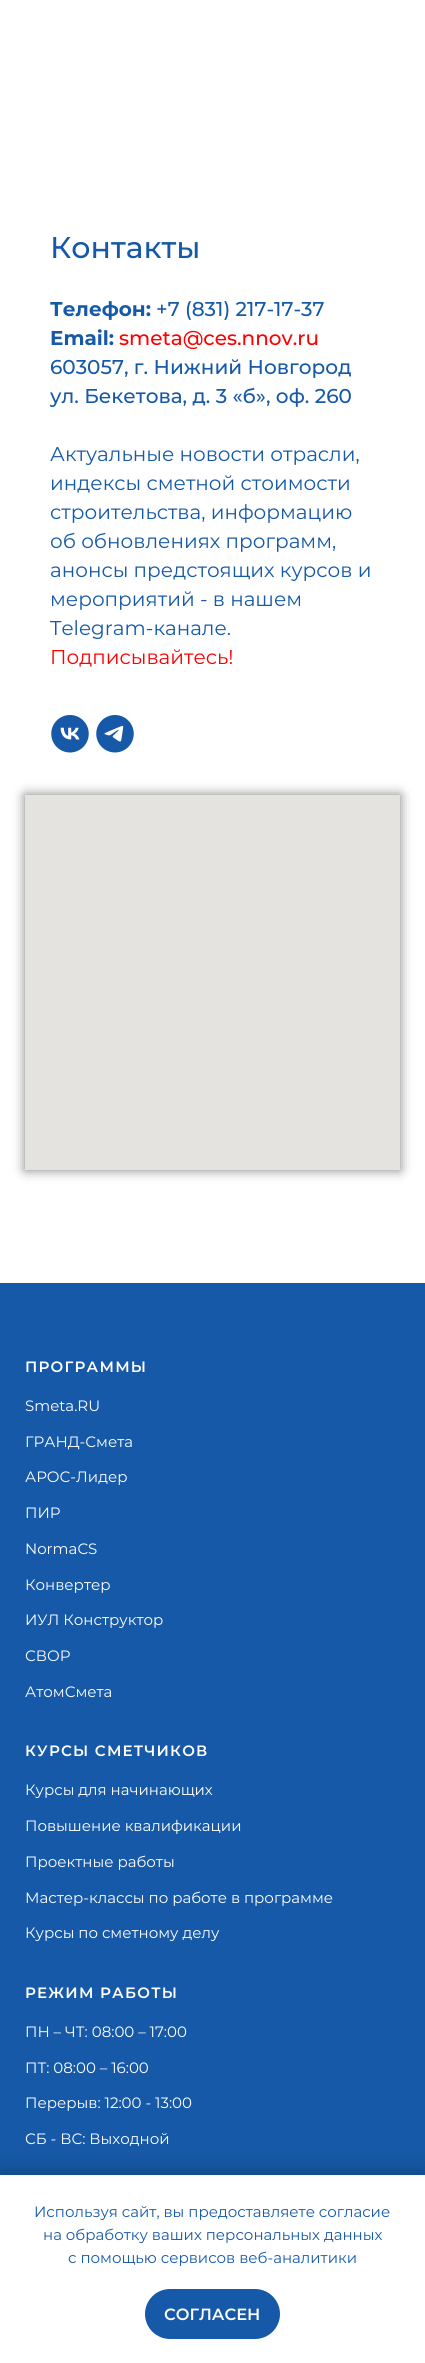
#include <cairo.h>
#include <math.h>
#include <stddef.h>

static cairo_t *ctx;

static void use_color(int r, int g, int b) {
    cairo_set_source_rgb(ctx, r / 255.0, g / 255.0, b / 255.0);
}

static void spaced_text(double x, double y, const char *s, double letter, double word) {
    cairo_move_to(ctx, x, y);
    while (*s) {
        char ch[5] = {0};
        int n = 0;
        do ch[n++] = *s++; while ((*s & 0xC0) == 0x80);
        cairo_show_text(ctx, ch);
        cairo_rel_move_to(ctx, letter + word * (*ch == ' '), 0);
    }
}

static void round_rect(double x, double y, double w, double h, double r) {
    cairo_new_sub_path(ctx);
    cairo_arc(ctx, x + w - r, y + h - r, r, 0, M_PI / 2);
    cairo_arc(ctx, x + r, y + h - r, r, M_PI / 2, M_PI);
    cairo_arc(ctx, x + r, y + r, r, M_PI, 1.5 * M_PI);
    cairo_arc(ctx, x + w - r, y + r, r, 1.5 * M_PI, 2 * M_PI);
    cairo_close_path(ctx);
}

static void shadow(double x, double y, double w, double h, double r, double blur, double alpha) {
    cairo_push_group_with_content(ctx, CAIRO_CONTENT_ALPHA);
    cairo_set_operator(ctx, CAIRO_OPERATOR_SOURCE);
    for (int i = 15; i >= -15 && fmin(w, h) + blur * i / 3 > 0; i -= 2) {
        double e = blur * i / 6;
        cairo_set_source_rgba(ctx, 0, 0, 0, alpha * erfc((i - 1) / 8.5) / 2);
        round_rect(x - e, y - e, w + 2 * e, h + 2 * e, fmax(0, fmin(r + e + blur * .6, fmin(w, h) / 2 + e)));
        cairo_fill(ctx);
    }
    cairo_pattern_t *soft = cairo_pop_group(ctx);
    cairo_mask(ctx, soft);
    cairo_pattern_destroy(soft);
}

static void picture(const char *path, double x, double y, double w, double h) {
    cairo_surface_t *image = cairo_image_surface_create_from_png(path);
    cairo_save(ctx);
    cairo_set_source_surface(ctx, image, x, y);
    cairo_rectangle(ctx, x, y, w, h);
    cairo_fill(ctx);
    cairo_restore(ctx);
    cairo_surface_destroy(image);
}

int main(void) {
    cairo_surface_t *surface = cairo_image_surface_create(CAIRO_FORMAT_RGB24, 425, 2363);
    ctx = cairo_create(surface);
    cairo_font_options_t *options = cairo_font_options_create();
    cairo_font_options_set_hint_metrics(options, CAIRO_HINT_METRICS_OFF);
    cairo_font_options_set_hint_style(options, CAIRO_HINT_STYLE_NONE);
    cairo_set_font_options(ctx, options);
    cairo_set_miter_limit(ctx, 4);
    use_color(255, 255, 255);
    cairo_paint(ctx);
    cairo_select_font_face(ctx, "Montserrat Medium", CAIRO_FONT_SLANT_NORMAL, CAIRO_FONT_WEIGHT_NORMAL);
    cairo_set_font_size(ctx, 30);
    use_color(22, 89, 168);
    cairo_move_to(ctx, 50, 258);
    cairo_show_text(ctx, "Контакты");
    cairo_select_font_face(ctx, "Montserrat", CAIRO_FONT_SLANT_NORMAL, CAIRO_FONT_WEIGHT_BOLD);
    cairo_set_font_size(ctx, 20);
    cairo_move_to(ctx, 50, 316);
    cairo_show_text(ctx, "Телефон:");
    cairo_select_font_face(ctx, "Montserrat Medium", CAIRO_FONT_SLANT_NORMAL, CAIRO_FONT_WEIGHT_NORMAL);
    cairo_move_to(ctx, 156, 316);
    cairo_show_text(ctx, "+7 (831) 217-17-37");
    cairo_select_font_face(ctx, "Montserrat", CAIRO_FONT_SLANT_NORMAL, CAIRO_FONT_WEIGHT_BOLD);
    cairo_move_to(ctx, 50, 345);
    cairo_show_text(ctx, "Email:");
    cairo_select_font_face(ctx, "Montserrat Medium", CAIRO_FONT_SLANT_NORMAL, CAIRO_FONT_WEIGHT_NORMAL);
    use_color(255, 0, 0);
    cairo_move_to(ctx, 119, 345);
    cairo_show_text(ctx, "smeta@ces.nnov.ru");
    use_color(22, 89, 168);
    cairo_move_to(ctx, 50, 374);
    cairo_show_text(ctx, "603057, г. Нижний Новгород");
    cairo_move_to(ctx, 50, 403);
    cairo_show_text(ctx, "ул. Бекетова, д. 3 «б», оф. 260");
    cairo_select_font_face(ctx, "Montserrat", CAIRO_FONT_SLANT_NORMAL, CAIRO_FONT_WEIGHT_NORMAL);
    cairo_move_to(ctx, 50, 461);
    cairo_show_text(ctx, "Актуальные новости отрасли,");
    cairo_move_to(ctx, 50, 490);
    cairo_show_text(ctx, "индексы сметной стоимости");
    cairo_move_to(ctx, 50, 519);
    cairo_show_text(ctx, "строительства, информацию");
    cairo_move_to(ctx, 50, 548);
    cairo_show_text(ctx, "об обновлениях программ,");
    cairo_move_to(ctx, 50, 577);
    cairo_show_text(ctx, "анонсы предстоящих курсов и");
    cairo_move_to(ctx, 50, 606);
    cairo_show_text(ctx, "мероприятий - в нашем");
    cairo_move_to(ctx, 50, 635);
    cairo_show_text(ctx, "Telegram-канале.");
    use_color(255, 0, 0);
    cairo_move_to(ctx, 50, 664);
    cairo_show_text(ctx, "Подписывайтесь!");
    picture("img1.png", 51, 715, 38, 38);
    picture("img2.png", 96, 715, 38, 38);
    use_color(0, 0, 0);
    shadow(25, 795, 375, 375, 0, 6, 0.5);
    use_color(229, 227, 223);
    cairo_rectangle(ctx, 25, 795, 375, 375);
    cairo_fill(ctx);
    use_color(22, 89, 168);
    cairo_rectangle(ctx, 0, 1283, 425, 892);
    cairo_fill(ctx);
    cairo_select_font_face(ctx, "Montserrat SemiBold", CAIRO_FONT_SLANT_NORMAL, CAIRO_FONT_WEIGHT_NORMAL);
    cairo_set_font_size(ctx, 15);
    use_color(255, 255, 255);
    spaced_text(25, 1372, "ПРОГРАММЫ", 1.25, 0);
    cairo_select_font_face(ctx, "Montserrat", CAIRO_FONT_SLANT_NORMAL, CAIRO_FONT_WEIGHT_NORMAL);
    cairo_move_to(ctx, 25, 1411);
    cairo_show_text(ctx, "Smeta.RU");
    cairo_move_to(ctx, 25, 1447);
    cairo_show_text(ctx, "ГРАНД-Смета");
    cairo_move_to(ctx, 25, 1482);
    cairo_show_text(ctx, "АРОС-Лидер");
    cairo_move_to(ctx, 25, 1518);
    cairo_show_text(ctx, "ПИР");
    cairo_move_to(ctx, 25, 1554);
    cairo_show_text(ctx, "NormaCS");
    cairo_move_to(ctx, 25, 1590);
    cairo_show_text(ctx, "Конвертер");
    cairo_move_to(ctx, 25, 1625);
    cairo_show_text(ctx, "ИУЛ Конструктор");
    cairo_move_to(ctx, 25, 1661);
    cairo_show_text(ctx, "СВОР");
    cairo_move_to(ctx, 25, 1697);
    cairo_show_text(ctx, "АтомСмета");
    cairo_select_font_face(ctx, "Montserrat SemiBold", CAIRO_FONT_SLANT_NORMAL, CAIRO_FONT_WEIGHT_NORMAL);
    spaced_text(25, 1756, "КУРСЫ СМЕТЧИКОВ", 1.25, 0);
    cairo_select_font_face(ctx, "Montserrat", CAIRO_FONT_SLANT_NORMAL, CAIRO_FONT_WEIGHT_NORMAL);
    cairo_move_to(ctx, 25, 1795);
    cairo_show_text(ctx, "Курсы для начинающих");
    cairo_move_to(ctx, 25, 1831);
    cairo_show_text(ctx, "Повышение квалификации");
    cairo_move_to(ctx, 25, 1867);
    cairo_show_text(ctx, "Проектные работы");
    cairo_move_to(ctx, 25, 1903);
    cairo_show_text(ctx, "Мастер-классы по работе в программе");
    cairo_move_to(ctx, 25, 1938);
    cairo_show_text(ctx, "Курсы по сметному делу");
    cairo_select_font_face(ctx, "Montserrat SemiBold", CAIRO_FONT_SLANT_NORMAL, CAIRO_FONT_WEIGHT_NORMAL);
    spaced_text(25, 1998, "РЕЖИМ РАБОТЫ", 1.25, 0);
    cairo_select_font_face(ctx, "Montserrat", CAIRO_FONT_SLANT_NORMAL, CAIRO_FONT_WEIGHT_NORMAL);
    cairo_move_to(ctx, 25, 2037);
    cairo_show_text(ctx, "ПН – ЧТ: 08:00 – 17:00");
    cairo_move_to(ctx, 25, 2073);
    cairo_show_text(ctx, "ПТ: 08:00 – 16:00");
    cairo_move_to(ctx, 25, 2108);
    cairo_show_text(ctx, "Перерыв: 12:00 - 13:00");
    cairo_move_to(ctx, 25, 2144);
    cairo_show_text(ctx, "СБ - ВС: Выходной");
    use_color(0, 0, 0);
    shadow(0, 2175, 425, 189, 0, 12.5, 0.3);
    use_color(255, 255, 255);
    cairo_rectangle(ctx, 0, 2175, 425, 188);
    cairo_fill(ctx);
    use_color(22, 89, 168);
    cairo_move_to(ctx, 34, 2217);
    cairo_show_text(ctx, "Используя сайт, вы предоставляете согласие");
    cairo_move_to(ctx, 43, 2240);
    cairo_show_text(ctx, "на обработку ваших персональных данных");
    cairo_move_to(ctx, 68, 2263);
    cairo_show_text(ctx, "с помощью сервисов веб-аналитики");
    round_rect(145, 2289, 135, 50, 25);
    cairo_fill(ctx);
    cairo_select_font_face(ctx, "Montserrat SemiBold", CAIRO_FONT_SLANT_NORMAL, CAIRO_FONT_WEIGHT_NORMAL);
    cairo_set_font_size(ctx, 16.25);
    use_color(255, 255, 255);
    cairo_move_to(ctx, 164, 2320);
    cairo_show_text(ctx, "СОГЛАСЕН");
    cairo_surface_write_to_png(surface, "result.png");
    cairo_font_options_destroy(options);
    cairo_destroy(ctx);
    cairo_surface_destroy(surface);
    return 0;
}
